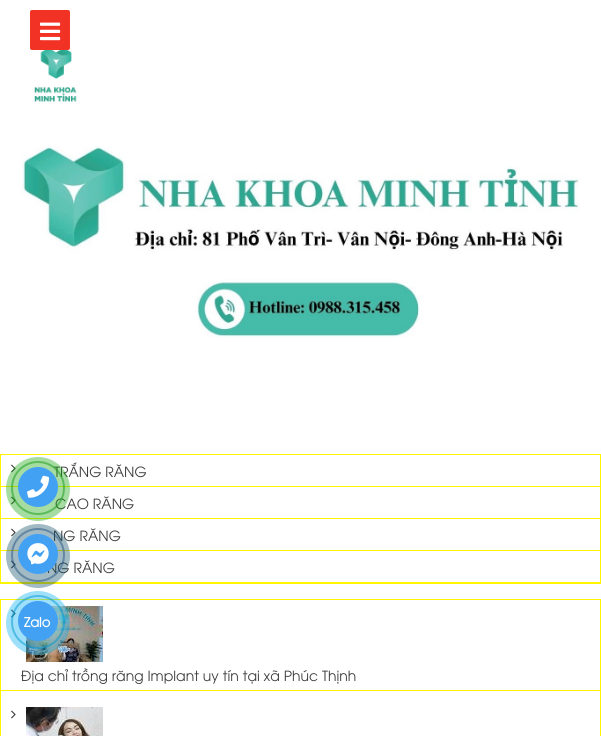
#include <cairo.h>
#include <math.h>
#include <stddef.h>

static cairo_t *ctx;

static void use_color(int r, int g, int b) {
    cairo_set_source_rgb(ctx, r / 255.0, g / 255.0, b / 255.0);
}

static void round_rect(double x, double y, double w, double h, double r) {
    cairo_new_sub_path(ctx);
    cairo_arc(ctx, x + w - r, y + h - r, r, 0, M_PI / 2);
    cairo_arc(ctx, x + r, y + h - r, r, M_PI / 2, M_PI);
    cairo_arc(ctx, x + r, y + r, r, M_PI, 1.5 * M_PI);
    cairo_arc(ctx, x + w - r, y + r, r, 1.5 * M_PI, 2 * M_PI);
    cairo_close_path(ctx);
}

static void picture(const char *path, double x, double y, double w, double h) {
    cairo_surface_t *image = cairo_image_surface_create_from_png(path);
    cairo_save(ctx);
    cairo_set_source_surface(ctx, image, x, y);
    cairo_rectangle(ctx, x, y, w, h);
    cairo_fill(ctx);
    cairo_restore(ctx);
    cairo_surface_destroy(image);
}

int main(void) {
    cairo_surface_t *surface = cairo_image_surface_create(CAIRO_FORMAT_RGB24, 601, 736);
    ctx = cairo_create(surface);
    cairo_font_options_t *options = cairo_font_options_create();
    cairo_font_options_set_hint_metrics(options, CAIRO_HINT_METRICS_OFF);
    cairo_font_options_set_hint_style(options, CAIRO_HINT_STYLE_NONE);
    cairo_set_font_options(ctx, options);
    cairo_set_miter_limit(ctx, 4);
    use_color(255, 255, 255);
    cairo_paint(ctx);
    picture("img2.png", 34, 47, 43, 55);
    use_color(241, 50, 36);
    round_rect(30, 10, 40, 40, 2);
    cairo_fill(ctx);
    picture("img1.png", 40, 22, 21, 19);
    picture("img3.png", 21, 146, 558, 192);
    cairo_rectangle(ctx, 0.5, 454.5, 600, 129);
    use_color(255, 245, 0);
    cairo_set_line_width(ctx, 1);
    cairo_stroke(ctx);
    cairo_rectangle(ctx, 1, 486, 599, 1);
    cairo_fill(ctx);
    picture("img4.png", 11, 464, 5, 9);
    cairo_select_font_face(ctx, "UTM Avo", CAIRO_FONT_SLANT_NORMAL, CAIRO_FONT_WEIGHT_NORMAL);
    cairo_set_font_size(ctx, 14);
    use_color(62, 62, 62);
    cairo_move_to(ctx, 54, 477);
    cairo_show_text(ctx, "TRẮNG RĂNG");
    use_color(255, 245, 0);
    cairo_rectangle(ctx, 1, 518, 599, 1);
    cairo_fill(ctx);
    picture("img4.png", 11, 496, 5, 9);
    use_color(62, 62, 62);
    cairo_move_to(ctx, 55, 509);
    cairo_show_text(ctx, "CAO RĂNG");
    use_color(255, 245, 0);
    cairo_rectangle(ctx, 1, 550, 599, 1);
    cairo_fill(ctx);
    picture("img4.png", 11, 528, 5, 9);
    use_color(62, 62, 62);
    cairo_move_to(ctx, 53, 541);
    cairo_show_text(ctx, "NG RĂNG");
    use_color(255, 245, 0);
    cairo_rectangle(ctx, 1, 582, 599, 1);
    cairo_fill(ctx);
    picture("img4.png", 11, 560, 5, 9);
    use_color(62, 62, 62);
    cairo_move_to(ctx, 47, 573);
    cairo_show_text(ctx, "NG RĂNG");
    cairo_rectangle(ctx, 0.5, 599.5, 600, 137);
    use_color(255, 245, 0);
    cairo_stroke(ctx);
    cairo_rectangle(ctx, 1, 690, 599, 1);
    cairo_fill(ctx);
    picture("img4.png", 11, 609, 5, 9);
    picture("img5.png", 26, 606, 77, 56);
    use_color(62, 62, 62);
    cairo_move_to(ctx, 21, 681);
    cairo_show_text(ctx, "Địa chỉ trồng răng Implant uy tín tại xã Phúc Thịnh");
    picture("img4.png", 11, 710, 5, 9);
    picture("img6.png", 26, 707, 77, 29);
    cairo_arc(ctx, 38, 488, 26, 0, 2 * M_PI);
    cairo_set_source_rgba(ctx, 0.063, 0.576, 0.086, 0.5);
    cairo_set_line_width(ctx, 2);
    cairo_stroke(ctx);
    cairo_set_source_rgba(ctx, 0.078, 0.643, 0.043, 0.38);
    cairo_arc(ctx, 38, 489, 32, 0, 2 * M_PI);
    cairo_fill(ctx);
    use_color(67, 161, 243);
    cairo_arc(ctx, 38, 487, 20, 0, 2 * M_PI);
    cairo_fill(ctx);
    picture("img7.png", 27, 475, 22, 23);
    cairo_arc(ctx, 38, 555, 26, 0, 2 * M_PI);
    cairo_set_source_rgba(ctx, 0.212, 0.345, 0.6, 0.5);
    cairo_stroke(ctx);
    cairo_set_source_rgba(ctx, 0.043, 0.294, 0.388, 0.38);
    cairo_arc(ctx, 38, 556, 32, 0, 2 * M_PI);
    cairo_fill(ctx);
    use_color(67, 161, 243);
    cairo_arc(ctx, 38, 554, 20, 0, 2 * M_PI);
    cairo_fill(ctx);
    picture("img8.png", 27, 543, 22, 22);
    cairo_arc(ctx, 38, 622, 26, 0, 2 * M_PI);
    cairo_set_source_rgba(ctx, 0, 0.537, 0.725, 0.5);
    cairo_stroke(ctx);
    cairo_set_source_rgba(ctx, 0, 0.686, 0.949, 0.38);
    cairo_arc(ctx, 38, 623, 32, 0, 2 * M_PI);
    cairo_fill(ctx);
    use_color(67, 161, 243);
    cairo_arc(ctx, 38, 621, 20, 0, 2 * M_PI);
    cairo_fill(ctx);
    cairo_select_font_face(ctx, "UTM Avo", CAIRO_FONT_SLANT_NORMAL, CAIRO_FONT_WEIGHT_BOLD);
    cairo_set_font_size(ctx, 13);
    use_color(255, 255, 255);
    cairo_move_to(ctx, 24, 627);
    cairo_show_text(ctx, "Zalo");
    cairo_surface_write_to_png(surface, "result.png");
    cairo_font_options_destroy(options);
    cairo_destroy(ctx);
    cairo_surface_destroy(surface);
    return 0;
}
